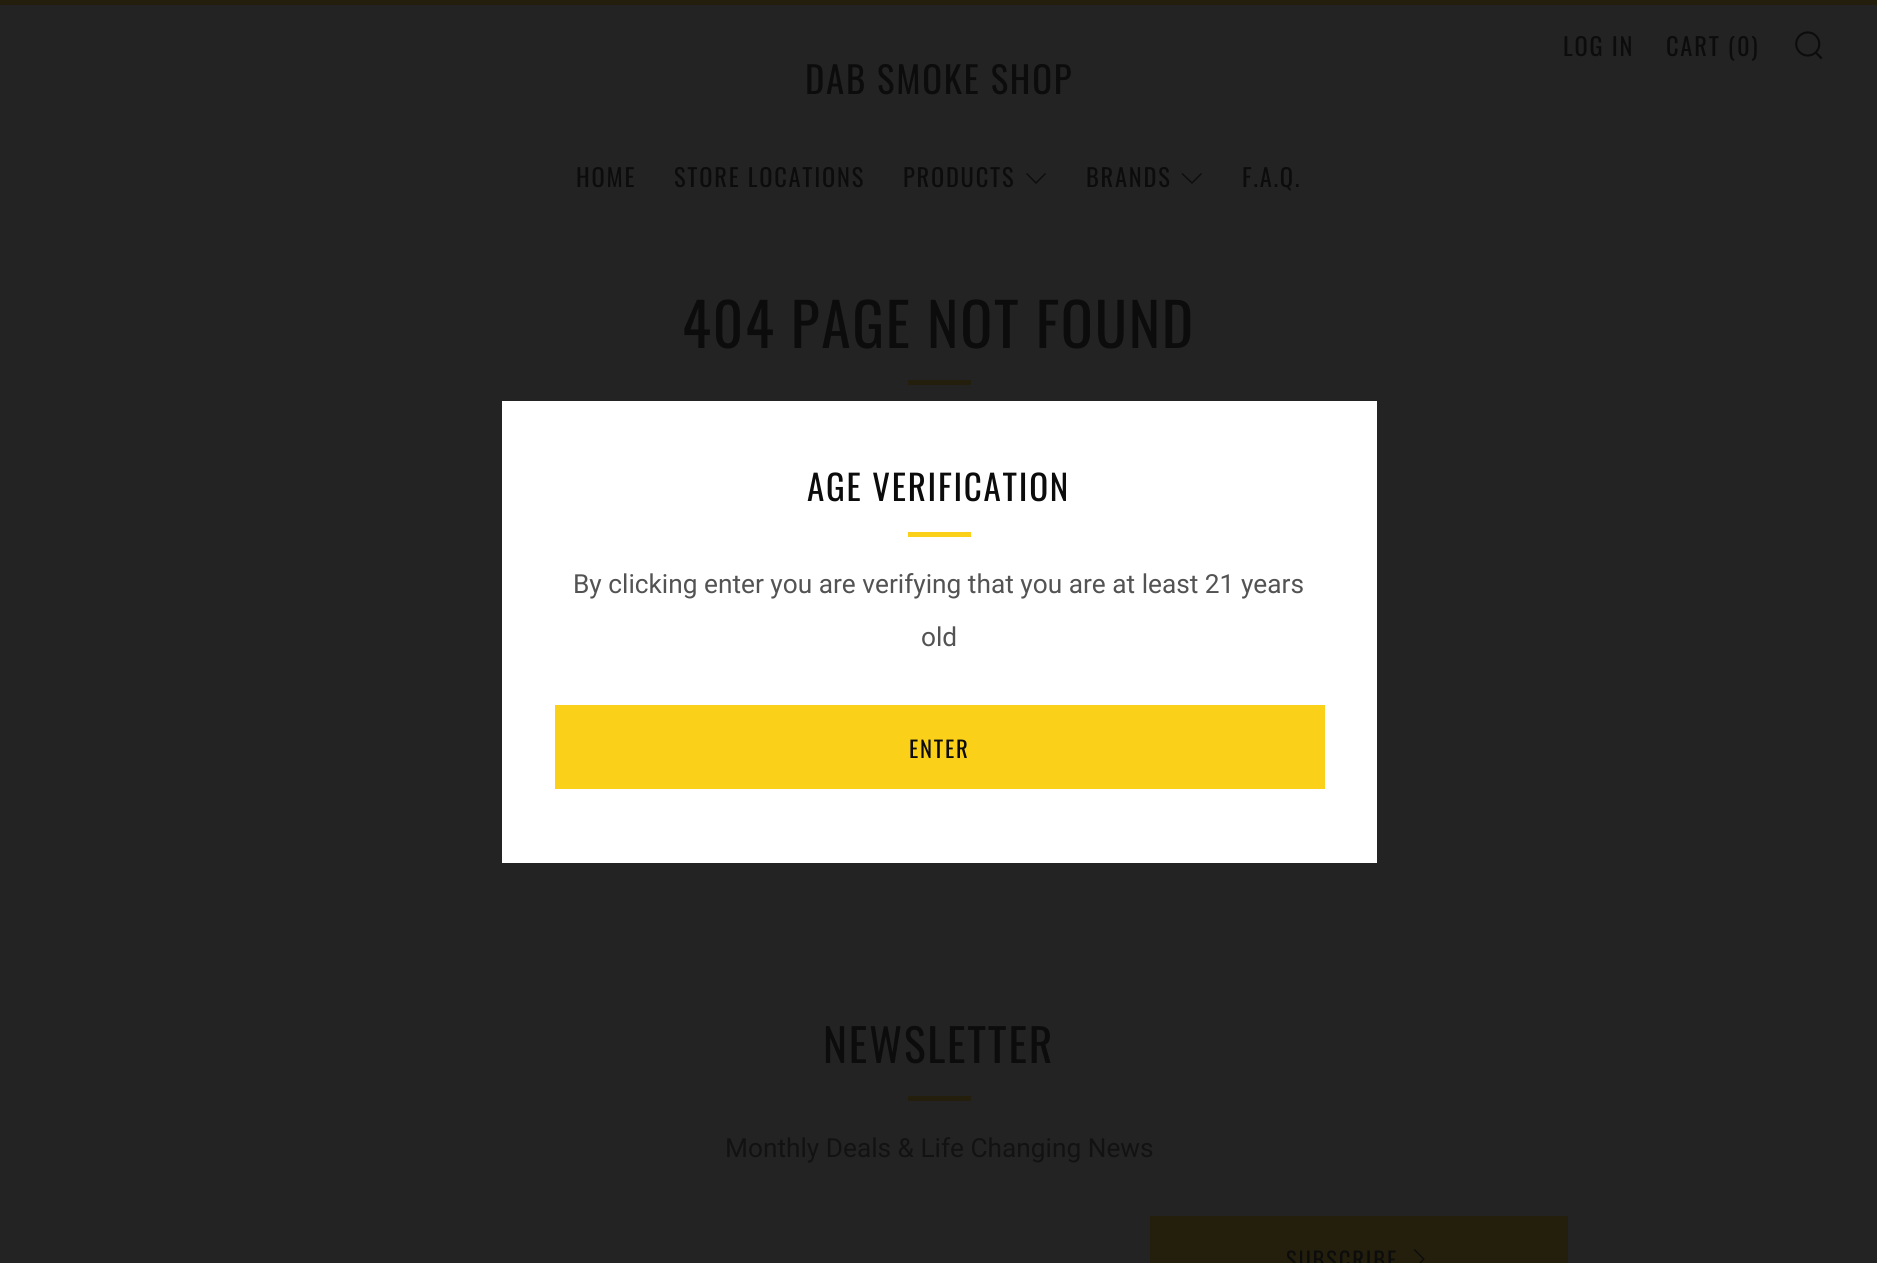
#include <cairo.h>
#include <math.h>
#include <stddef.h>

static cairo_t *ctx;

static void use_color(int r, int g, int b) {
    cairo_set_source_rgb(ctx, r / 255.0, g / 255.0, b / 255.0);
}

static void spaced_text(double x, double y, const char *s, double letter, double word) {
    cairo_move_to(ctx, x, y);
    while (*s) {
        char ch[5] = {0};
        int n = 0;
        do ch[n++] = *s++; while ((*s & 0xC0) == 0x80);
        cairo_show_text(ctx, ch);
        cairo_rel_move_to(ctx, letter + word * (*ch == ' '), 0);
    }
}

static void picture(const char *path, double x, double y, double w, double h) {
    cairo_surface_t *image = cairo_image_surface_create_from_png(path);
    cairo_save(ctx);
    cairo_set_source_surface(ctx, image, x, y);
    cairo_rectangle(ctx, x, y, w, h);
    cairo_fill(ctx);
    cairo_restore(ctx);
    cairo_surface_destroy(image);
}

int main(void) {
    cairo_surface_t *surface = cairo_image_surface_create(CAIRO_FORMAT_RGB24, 1877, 1263);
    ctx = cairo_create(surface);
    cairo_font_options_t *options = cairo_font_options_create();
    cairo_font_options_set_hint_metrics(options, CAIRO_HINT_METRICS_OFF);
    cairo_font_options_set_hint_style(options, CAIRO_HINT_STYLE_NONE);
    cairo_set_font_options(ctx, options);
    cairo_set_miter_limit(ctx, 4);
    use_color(35, 35, 35);
    cairo_paint(ctx);
    use_color(35, 31, 12);
    cairo_rectangle(ctx, 0, 0, 1877, 5);
    cairo_fill(ctx);
    cairo_select_font_face(ctx, "Oswald", CAIRO_FONT_SLANT_NORMAL, CAIRO_FONT_WEIGHT_NORMAL);
    cairo_set_font_size(ctx, 24.5);
    use_color(12, 12, 12);
    spaced_text(1563, 56, "LOG IN", 1.75, 0);
    spaced_text(1666, 56, "CART (0)", 1.75, 0);
    picture("img1.png", 1795, 31, 28, 29);
    spaced_text(576, 187, "HOME", 1.75, 0);
    spaced_text(674, 187, "STORE LOCATIONS", 1.75, 0);
    spaced_text(903, 187, "PRODUCTS", 1.75, 0);
    cairo_new_path(ctx);
    cairo_move_to(ctx, 1027, 173);
    cairo_line_to(ctx, 1026, 174);
    cairo_line_to(ctx, 1036, 184);
    cairo_line_to(ctx, 1046, 174);
    cairo_line_to(ctx, 1045, 173);
    cairo_line_to(ctx, 1036, 182);
    cairo_close_path(ctx);
    cairo_fill(ctx);
    spaced_text(1086, 187, "BRANDS", 1.75, 0);
    cairo_new_path(ctx);
    cairo_move_to(ctx, 1182.5, 173);
    cairo_line_to(ctx, 1181.5, 174);
    cairo_line_to(ctx, 1192, 184);
    cairo_line_to(ctx, 1202, 174);
    cairo_line_to(ctx, 1201, 173);
    cairo_line_to(ctx, 1192, 182);
    cairo_close_path(ctx);
    cairo_fill(ctx);
    spaced_text(1242, 187, "F.A.Q.", 1.75, 0);
    cairo_set_font_size(ctx, 36.75);
    spaced_text(805, 94, "DAB SMOKE SHOP", 1.75, 0);
    cairo_set_font_size(ctx, 59.5);
    spaced_text(682, 348, "404 PAGE NOT FOUND", 1.75, 0);
    use_color(35, 31, 12);
    cairo_rectangle(ctx, 908, 380, 63, 5);
    cairo_fill(ctx);
    use_color(255, 255, 255);
    cairo_rectangle(ctx, 502, 401, 875, 462);
    cairo_fill(ctx);
    cairo_set_font_size(ctx, 35);
    use_color(12, 12, 12);
    spaced_text(807, 501, "AGE VERIFICATION", 1.75, 0);
    use_color(250, 208, 24);
    cairo_rectangle(ctx, 908, 532, 63, 5);
    cairo_fill(ctx);
    cairo_select_font_face(ctx, "Roboto", CAIRO_FONT_SLANT_NORMAL, CAIRO_FONT_WEIGHT_NORMAL);
    cairo_set_font_size(ctx, 26.25);
    use_color(83, 83, 83);
    cairo_move_to(ctx, 573, 593);
    cairo_show_text(ctx, "By clicking enter you are verifying that you are at least 21 years");
    cairo_move_to(ctx, 921, 646);
    cairo_show_text(ctx, "old");
    use_color(250, 208, 24);
    cairo_rectangle(ctx, 555, 705, 770, 84);
    cairo_fill(ctx);
    cairo_select_font_face(ctx, "Oswald", CAIRO_FONT_SLANT_NORMAL, CAIRO_FONT_WEIGHT_NORMAL);
    cairo_set_font_size(ctx, 22.75);
    use_color(12, 12, 12);
    spaced_text(909, 758, "ENTER", 1.75, 0);
    cairo_set_font_size(ctx, 45.5);
    spaced_text(823, 1063, "NEWSLETTER", 1.75, 0);
    use_color(35, 31, 12);
    cairo_rectangle(ctx, 908, 1096, 63, 5);
    cairo_fill(ctx);
    cairo_select_font_face(ctx, "Roboto", CAIRO_FONT_SLANT_NORMAL, CAIRO_FONT_WEIGHT_NORMAL);
    cairo_set_font_size(ctx, 26.25);
    use_color(18, 18, 18);
    cairo_move_to(ctx, 725, 1157);
    cairo_show_text(ctx, "Monthly Deals & Life Changing News");
    use_color(35, 31, 12);
    cairo_rectangle(ctx, 1150, 1216, 418, 47);
    cairo_fill(ctx);
    cairo_select_font_face(ctx, "Oswald", CAIRO_FONT_SLANT_NORMAL, CAIRO_FONT_WEIGHT_NORMAL);
    cairo_set_font_size(ctx, 22.75);
    use_color(12, 12, 12);
    spaced_text(1286, 1269, "SUBSCRIBE", 1.75, 0);
    picture("img2.png", 1413, 1249, 12, 14);
    cairo_surface_write_to_png(surface, "result.png");
    cairo_font_options_destroy(options);
    cairo_destroy(ctx);
    cairo_surface_destroy(surface);
    return 0;
}
